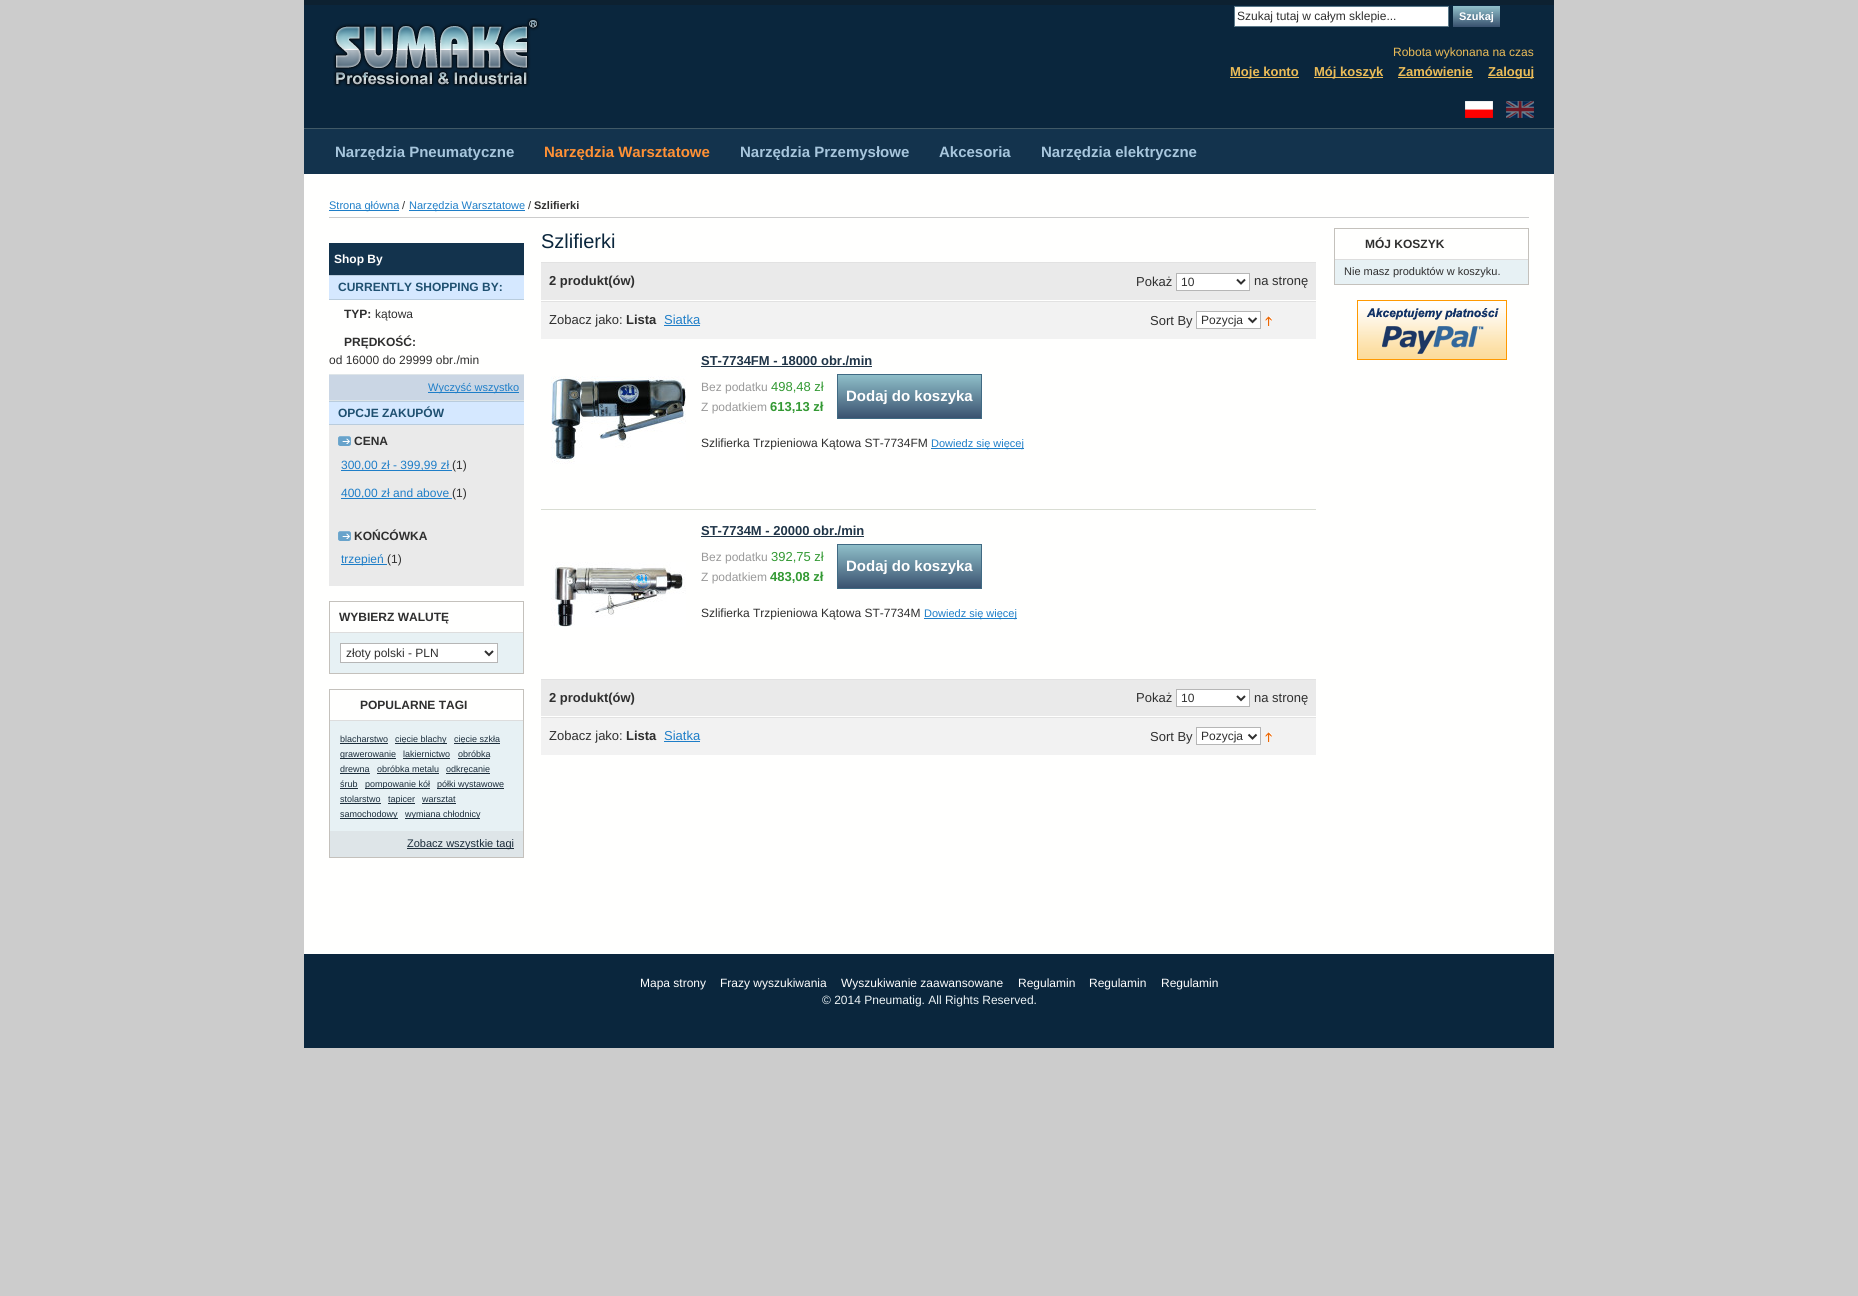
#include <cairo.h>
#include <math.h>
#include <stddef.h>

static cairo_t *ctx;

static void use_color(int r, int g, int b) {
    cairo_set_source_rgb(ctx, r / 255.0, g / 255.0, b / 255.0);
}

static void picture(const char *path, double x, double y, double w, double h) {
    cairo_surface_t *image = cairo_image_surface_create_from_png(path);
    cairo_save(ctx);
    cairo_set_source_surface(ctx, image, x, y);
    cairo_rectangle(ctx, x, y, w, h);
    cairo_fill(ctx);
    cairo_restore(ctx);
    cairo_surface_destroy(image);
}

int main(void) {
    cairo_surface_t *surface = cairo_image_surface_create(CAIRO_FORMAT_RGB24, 1858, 1296);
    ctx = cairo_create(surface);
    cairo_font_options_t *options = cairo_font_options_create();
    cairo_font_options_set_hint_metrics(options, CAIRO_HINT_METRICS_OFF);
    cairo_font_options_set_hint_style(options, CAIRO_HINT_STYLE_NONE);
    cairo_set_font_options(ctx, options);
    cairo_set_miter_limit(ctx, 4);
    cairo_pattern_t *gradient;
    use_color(204, 204, 204);
    cairo_paint(ctx);
    use_color(10, 38, 61);
    cairo_rectangle(ctx, 304, 5, 1250, 123);
    cairo_fill(ctx);
    use_color(13, 33, 49);
    cairo_rectangle(ctx, 304, 0, 1250, 5);
    cairo_fill(ctx);
    use_color(65, 89, 102);
    cairo_rectangle(ctx, 304, 128, 1250, 1);
    cairo_fill(ctx);
    picture("img1.png", 333, 18, 207, 69);
    use_color(255, 255, 255);
    cairo_rectangle(ctx, 1234.5, 6.5, 214, 20);
    cairo_fill_preserve(ctx);
    use_color(92, 121, 137);
    cairo_set_line_width(ctx, 1);
    cairo_stroke(ctx);
    cairo_select_font_face(ctx, "Liberation Sans", CAIRO_FONT_SLANT_NORMAL, CAIRO_FONT_WEIGHT_NORMAL);
    cairo_set_font_size(ctx, 12);
    use_color(47, 47, 47);
    cairo_move_to(ctx, 1237, 20);
    cairo_show_text(ctx, "Szukaj tutaj w całym sklepie...");
    gradient = cairo_pattern_create_linear(1477, 6, 1477, 27);
    cairo_pattern_add_color_stop_rgba(gradient, 0, 0.569, 0.757, 0.796, 1);
    cairo_pattern_add_color_stop_rgba(gradient, 1, 0.22, 0.314, 0.431, 1);
    cairo_set_source(ctx, gradient);
    cairo_pattern_destroy(gradient);
    cairo_rectangle(ctx, 1453, 6, 47, 21);
    cairo_fill(ctx);
    cairo_select_font_face(ctx, "Liberation Sans", CAIRO_FONT_SLANT_NORMAL, CAIRO_FONT_WEIGHT_BOLD);
    cairo_set_font_size(ctx, 11);
    use_color(255, 255, 255);
    cairo_move_to(ctx, 1459, 20);
    cairo_show_text(ctx, "Szukaj");
    cairo_select_font_face(ctx, "Liberation Sans", CAIRO_FONT_SLANT_NORMAL, CAIRO_FONT_WEIGHT_NORMAL);
    cairo_set_font_size(ctx, 12);
    use_color(235, 188, 88);
    cairo_move_to(ctx, 1393, 56);
    cairo_show_text(ctx, "Robota wykonana na czas");
    cairo_rectangle(ctx, 1230, 77, 69, 1);
    cairo_fill(ctx);
    cairo_select_font_face(ctx, "Liberation Sans", CAIRO_FONT_SLANT_NORMAL, CAIRO_FONT_WEIGHT_BOLD);
    cairo_set_font_size(ctx, 13);
    cairo_move_to(ctx, 1230, 76);
    cairo_show_text(ctx, "Moje konto");
    cairo_rectangle(ctx, 1314, 77, 69, 1);
    cairo_fill(ctx);
    cairo_move_to(ctx, 1314, 76);
    cairo_show_text(ctx, "Mój koszyk");
    cairo_move_to(ctx, 1398, 76);
    cairo_show_text(ctx, "Zamówienie");
    cairo_rectangle(ctx, 1398, 77, 75, 1);
    cairo_fill(ctx);
    cairo_rectangle(ctx, 1488, 77, 46, 1);
    cairo_fill(ctx);
    cairo_move_to(ctx, 1488, 76);
    cairo_show_text(ctx, "Zaloguj");
    picture("img2.png", 1465, 101, 28, 17);
    picture("img3.png", 1506, 101, 28, 17);
    use_color(19, 51, 77);
    cairo_rectangle(ctx, 304, 129, 1250, 45);
    cairo_fill(ctx);
    cairo_set_font_size(ctx, 15);
    use_color(167, 198, 221);
    cairo_move_to(ctx, 335, 157);
    cairo_show_text(ctx, "Narzędzia Pneumatyczne");
    use_color(255, 145, 53);
    cairo_move_to(ctx, 544, 157);
    cairo_show_text(ctx, "Narzędzia Warsztatowe");
    use_color(167, 198, 221);
    cairo_move_to(ctx, 740, 157);
    cairo_show_text(ctx, "Narzędzia Przemysłowe");
    cairo_move_to(ctx, 939, 157);
    cairo_show_text(ctx, "Akcesoria");
    cairo_move_to(ctx, 1041, 157);
    cairo_show_text(ctx, "Narzędzia elektryczne");
    use_color(255, 255, 254);
    cairo_rectangle(ctx, 304, 174, 1250, 780);
    cairo_fill(ctx);
    use_color(204, 204, 204);
    cairo_rectangle(ctx, 329, 217, 1200, 1);
    cairo_fill(ctx);
    use_color(30, 126, 200);
    cairo_rectangle(ctx, 329, 210, 70, 1);
    cairo_fill(ctx);
    cairo_select_font_face(ctx, "Liberation Sans", CAIRO_FONT_SLANT_NORMAL, CAIRO_FONT_WEIGHT_NORMAL);
    cairo_set_font_size(ctx, 11);
    cairo_move_to(ctx, 329, 209);
    cairo_show_text(ctx, "Strona główna");
    use_color(47, 47, 47);
    cairo_move_to(ctx, 402, 209);
    cairo_show_text(ctx, "/");
    use_color(30, 126, 200);
    cairo_rectangle(ctx, 409, 210, 116, 1);
    cairo_fill(ctx);
    cairo_move_to(ctx, 409, 209);
    cairo_show_text(ctx, "Narzędzia Warsztatowe");
    use_color(47, 47, 47);
    cairo_move_to(ctx, 528, 209);
    cairo_show_text(ctx, "/");
    cairo_select_font_face(ctx, "Liberation Sans", CAIRO_FONT_SLANT_NORMAL, CAIRO_FONT_WEIGHT_BOLD);
    cairo_move_to(ctx, 534, 209);
    cairo_show_text(ctx, "Szlifierki");
    use_color(19, 51, 77);
    cairo_rectangle(ctx, 329, 243, 195, 32);
    cairo_fill(ctx);
    cairo_set_font_size(ctx, 12);
    use_color(255, 255, 255);
    cairo_move_to(ctx, 334, 263);
    cairo_show_text(ctx, "Shop By");
    use_color(234, 234, 234);
    cairo_rectangle(ctx, 329, 425, 195, 161);
    cairo_fill(ctx);
    use_color(213, 232, 255);
    cairo_rectangle(ctx, 329, 276, 195, 23);
    cairo_fill(ctx);
    use_color(185, 204, 221);
    cairo_rectangle(ctx, 329, 275, 195, 1);
    cairo_fill(ctx);
    cairo_rectangle(ctx, 329, 299, 195, 1);
    cairo_fill(ctx);
    use_color(31, 80, 112);
    cairo_move_to(ctx, 338, 291);
    cairo_show_text(ctx, "CURRENTLY SHOPPING BY:");
    use_color(47, 47, 47);
    cairo_move_to(ctx, 344, 318);
    cairo_show_text(ctx, "TYP:");
    cairo_select_font_face(ctx, "Liberation Sans", CAIRO_FONT_SLANT_NORMAL, CAIRO_FONT_WEIGHT_NORMAL);
    cairo_move_to(ctx, 375, 318);
    cairo_show_text(ctx, "kątowa");
    cairo_select_font_face(ctx, "Liberation Sans", CAIRO_FONT_SLANT_NORMAL, CAIRO_FONT_WEIGHT_BOLD);
    cairo_move_to(ctx, 344, 346);
    cairo_show_text(ctx, "PRĘDKOŚĆ:");
    cairo_select_font_face(ctx, "Liberation Sans", CAIRO_FONT_SLANT_NORMAL, CAIRO_FONT_WEIGHT_NORMAL);
    cairo_move_to(ctx, 329, 364);
    cairo_show_text(ctx, "od 16000 do 29999 obr./min");
    use_color(202, 214, 228);
    cairo_rectangle(ctx, 329, 375, 195, 25);
    cairo_fill(ctx);
    use_color(222, 229, 232);
    cairo_rectangle(ctx, 329, 374, 195, 1);
    cairo_fill(ctx);
    cairo_rectangle(ctx, 329, 400, 195, 1);
    cairo_fill(ctx);
    use_color(30, 126, 200);
    cairo_rectangle(ctx, 428, 392, 91, 1);
    cairo_fill(ctx);
    cairo_set_font_size(ctx, 11);
    cairo_move_to(ctx, 428, 391);
    cairo_show_text(ctx, "Wyczyść wszystko");
    use_color(213, 232, 255);
    cairo_rectangle(ctx, 329, 402, 195, 22);
    cairo_fill(ctx);
    use_color(185, 204, 221);
    cairo_rectangle(ctx, 329, 401, 195, 1);
    cairo_fill(ctx);
    cairo_rectangle(ctx, 329, 424, 195, 1);
    cairo_fill(ctx);
    cairo_select_font_face(ctx, "Liberation Sans", CAIRO_FONT_SLANT_NORMAL, CAIRO_FONT_WEIGHT_BOLD);
    cairo_set_font_size(ctx, 12);
    use_color(31, 80, 112);
    cairo_move_to(ctx, 338, 417);
    cairo_show_text(ctx, "OPCJE ZAKUPÓW");
    picture("img4.png", 338, 436, 13, 10);
    use_color(47, 47, 47);
    cairo_move_to(ctx, 354, 445);
    cairo_show_text(ctx, "CENA");
    use_color(30, 126, 200);
    cairo_rectangle(ctx, 341, 470, 111, 1);
    cairo_fill(ctx);
    cairo_select_font_face(ctx, "Liberation Sans", CAIRO_FONT_SLANT_NORMAL, CAIRO_FONT_WEIGHT_NORMAL);
    cairo_move_to(ctx, 341, 469);
    cairo_show_text(ctx, "300,00 zł - 399,99 zł");
    use_color(47, 47, 47);
    cairo_move_to(ctx, 452, 469);
    cairo_show_text(ctx, "(1)");
    use_color(30, 126, 200);
    cairo_rectangle(ctx, 341, 498, 111, 1);
    cairo_fill(ctx);
    cairo_move_to(ctx, 341, 497);
    cairo_show_text(ctx, "400,00 zł and above");
    use_color(47, 47, 47);
    cairo_move_to(ctx, 452, 497);
    cairo_show_text(ctx, "(1)");
    picture("img4.png", 338, 531, 13, 10);
    cairo_select_font_face(ctx, "Liberation Sans", CAIRO_FONT_SLANT_NORMAL, CAIRO_FONT_WEIGHT_BOLD);
    cairo_move_to(ctx, 354, 540);
    cairo_show_text(ctx, "KOŃCÓWKA");
    use_color(30, 126, 200);
    cairo_rectangle(ctx, 341, 564, 46, 1);
    cairo_fill(ctx);
    cairo_select_font_face(ctx, "Liberation Sans", CAIRO_FONT_SLANT_NORMAL, CAIRO_FONT_WEIGHT_NORMAL);
    cairo_move_to(ctx, 341, 563);
    cairo_show_text(ctx, "trzepień");
    use_color(47, 47, 47);
    cairo_move_to(ctx, 387, 563);
    cairo_show_text(ctx, "(1)");
    cairo_rectangle(ctx, 329.5, 601.5, 194, 72);
    use_color(196, 193, 188);
    cairo_stroke(ctx);
    use_color(221, 221, 221);
    cairo_rectangle(ctx, 330, 632, 193, 1);
    cairo_fill(ctx);
    cairo_select_font_face(ctx, "Liberation Sans", CAIRO_FONT_SLANT_NORMAL, CAIRO_FONT_WEIGHT_BOLD);
    use_color(47, 47, 47);
    cairo_move_to(ctx, 339, 621);
    cairo_show_text(ctx, "WYBIERZ WALUTĘ");
    use_color(231, 241, 244);
    cairo_rectangle(ctx, 330, 633, 193, 40);
    cairo_fill(ctx);
    use_color(255, 255, 255);
    cairo_rectangle(ctx, 340.5, 643.5, 157, 19);
    cairo_fill_preserve(ctx);
    use_color(182, 182, 182);
    cairo_stroke(ctx);
    cairo_new_path(ctx);
    cairo_move_to(ctx, 485, 651);
    cairo_line_to(ctx, 489, 655);
    cairo_line_to(ctx, 493, 651);
    use_color(47, 47, 47);
    cairo_set_line_width(ctx, 2);
    cairo_stroke(ctx);
    cairo_select_font_face(ctx, "Liberation Sans", CAIRO_FONT_SLANT_NORMAL, CAIRO_FONT_WEIGHT_NORMAL);
    cairo_move_to(ctx, 346, 657);
    cairo_show_text(ctx, "złoty polski - PLN");
    cairo_rectangle(ctx, 329.5, 689.5, 194, 168);
    use_color(196, 193, 188);
    cairo_set_line_width(ctx, 1);
    cairo_stroke(ctx);
    use_color(221, 221, 221);
    cairo_rectangle(ctx, 330, 720, 193, 1);
    cairo_fill(ctx);
    cairo_select_font_face(ctx, "Liberation Sans", CAIRO_FONT_SLANT_NORMAL, CAIRO_FONT_WEIGHT_BOLD);
    use_color(47, 47, 47);
    cairo_move_to(ctx, 360, 709);
    cairo_show_text(ctx, "POPULARNE TAGI");
    use_color(231, 241, 244);
    cairo_rectangle(ctx, 330, 721, 193, 110);
    cairo_fill(ctx);
    cairo_select_font_face(ctx, "Liberation Sans", CAIRO_FONT_SLANT_NORMAL, CAIRO_FONT_WEIGHT_NORMAL);
    cairo_set_font_size(ctx, 9);
    use_color(27, 45, 59);
    cairo_move_to(ctx, 340, 742);
    cairo_show_text(ctx, "blacharstwo");
    cairo_rectangle(ctx, 340, 743, 48, 1);
    cairo_fill(ctx);
    cairo_rectangle(ctx, 395, 743, 52, 1);
    cairo_fill(ctx);
    cairo_move_to(ctx, 395, 742);
    cairo_show_text(ctx, "cięcie blachy");
    cairo_rectangle(ctx, 454, 743, 46, 1);
    cairo_fill(ctx);
    cairo_move_to(ctx, 454, 742);
    cairo_show_text(ctx, "cięcie szkła");
    cairo_rectangle(ctx, 340, 758, 56, 1);
    cairo_fill(ctx);
    cairo_move_to(ctx, 340, 757);
    cairo_show_text(ctx, "grawerowanie");
    cairo_move_to(ctx, 403, 757);
    cairo_show_text(ctx, "lakiernictwo");
    cairo_rectangle(ctx, 403, 758, 47, 1);
    cairo_fill(ctx);
    cairo_move_to(ctx, 458, 757);
    cairo_show_text(ctx, "obróbka");
    cairo_rectangle(ctx, 458, 758, 32, 1);
    cairo_fill(ctx);
    cairo_move_to(ctx, 340, 772);
    cairo_show_text(ctx, "drewna");
    cairo_rectangle(ctx, 340, 773, 30, 1);
    cairo_fill(ctx);
    cairo_move_to(ctx, 377, 772);
    cairo_show_text(ctx, "obróbka metalu");
    cairo_rectangle(ctx, 377, 773, 62, 1);
    cairo_fill(ctx);
    cairo_rectangle(ctx, 446, 773, 44, 1);
    cairo_fill(ctx);
    cairo_move_to(ctx, 446, 772);
    cairo_show_text(ctx, "odkręcanie");
    cairo_move_to(ctx, 340, 787);
    cairo_show_text(ctx, "śrub");
    cairo_rectangle(ctx, 340, 788, 18, 1);
    cairo_fill(ctx);
    cairo_rectangle(ctx, 365, 788, 65, 1);
    cairo_fill(ctx);
    cairo_move_to(ctx, 365, 787);
    cairo_show_text(ctx, "pompowanie kół");
    cairo_rectangle(ctx, 437, 788, 67, 1);
    cairo_fill(ctx);
    cairo_move_to(ctx, 437, 787);
    cairo_show_text(ctx, "półki wystawowe");
    cairo_move_to(ctx, 340, 802);
    cairo_show_text(ctx, "stolarstwo");
    cairo_rectangle(ctx, 340, 803, 41, 1);
    cairo_fill(ctx);
    cairo_rectangle(ctx, 388, 803, 27, 1);
    cairo_fill(ctx);
    cairo_move_to(ctx, 388, 802);
    cairo_show_text(ctx, "tapicer");
    cairo_move_to(ctx, 422, 802);
    cairo_show_text(ctx, "warsztat");
    cairo_rectangle(ctx, 422, 803, 34, 1);
    cairo_fill(ctx);
    cairo_rectangle(ctx, 340, 818, 58, 1);
    cairo_fill(ctx);
    cairo_move_to(ctx, 340, 817);
    cairo_show_text(ctx, "samochodowy");
    cairo_rectangle(ctx, 405, 818, 75, 1);
    cairo_fill(ctx);
    cairo_move_to(ctx, 405, 817);
    cairo_show_text(ctx, "wymiana chłodnicy");
    use_color(222, 229, 232);
    cairo_rectangle(ctx, 330, 831, 193, 26);
    cairo_fill(ctx);
    use_color(27, 45, 59);
    cairo_rectangle(ctx, 407, 848, 107, 1);
    cairo_fill(ctx);
    cairo_set_font_size(ctx, 11);
    cairo_move_to(ctx, 407, 847);
    cairo_show_text(ctx, "Zobacz wszystkie tagi");
    cairo_set_font_size(ctx, 20);
    use_color(10, 38, 60);
    cairo_move_to(ctx, 541, 248);
    cairo_show_text(ctx, "Szlifierki");
    use_color(234, 234, 234);
    cairo_rectangle(ctx, 541, 263, 775, 37);
    cairo_fill(ctx);
    use_color(226, 226, 226);
    cairo_rectangle(ctx, 541, 262, 775, 1);
    cairo_fill(ctx);
    cairo_select_font_face(ctx, "Liberation Sans", CAIRO_FONT_SLANT_NORMAL, CAIRO_FONT_WEIGHT_BOLD);
    cairo_set_font_size(ctx, 13);
    use_color(47, 47, 47);
    cairo_move_to(ctx, 549, 285);
    cairo_show_text(ctx, "2 produkt(ów)");
    cairo_select_font_face(ctx, "Liberation Sans", CAIRO_FONT_SLANT_NORMAL, CAIRO_FONT_WEIGHT_NORMAL);
    cairo_move_to(ctx, 1136, 286);
    cairo_show_text(ctx, "Pokaż");
    use_color(255, 255, 255);
    cairo_rectangle(ctx, 1176.5, 273.5, 73, 17);
    cairo_fill_preserve(ctx);
    use_color(182, 182, 182);
    cairo_stroke(ctx);
    cairo_new_path(ctx);
    cairo_move_to(ctx, 1237, 279.5);
    cairo_line_to(ctx, 1241, 283.5);
    cairo_line_to(ctx, 1245, 279.5);
    use_color(47, 47, 47);
    cairo_set_line_width(ctx, 2);
    cairo_stroke(ctx);
    cairo_set_font_size(ctx, 12);
    cairo_move_to(ctx, 1181, 286);
    cairo_show_text(ctx, "10");
    cairo_set_font_size(ctx, 13);
    cairo_move_to(ctx, 1254, 285);
    cairo_show_text(ctx, "na stronę");
    use_color(242, 242, 242);
    cairo_rectangle(ctx, 541, 302, 775, 37);
    cairo_fill(ctx);
    use_color(226, 226, 226);
    cairo_rectangle(ctx, 541, 301, 775, 1);
    cairo_fill(ctx);
    use_color(47, 47, 47);
    cairo_move_to(ctx, 549, 324);
    cairo_show_text(ctx, "Zobacz jako:");
    cairo_select_font_face(ctx, "Liberation Sans", CAIRO_FONT_SLANT_NORMAL, CAIRO_FONT_WEIGHT_BOLD);
    cairo_move_to(ctx, 626, 324);
    cairo_show_text(ctx, "Lista");
    cairo_select_font_face(ctx, "Liberation Sans", CAIRO_FONT_SLANT_NORMAL, CAIRO_FONT_WEIGHT_NORMAL);
    use_color(30, 126, 200);
    cairo_move_to(ctx, 664, 324);
    cairo_show_text(ctx, "Siatka");
    cairo_rectangle(ctx, 664, 325, 36, 1);
    cairo_fill(ctx);
    use_color(47, 47, 47);
    cairo_move_to(ctx, 1150, 325);
    cairo_show_text(ctx, "Sort By");
    use_color(255, 255, 255);
    cairo_rectangle(ctx, 1196.5, 311.5, 64, 17);
    cairo_fill_preserve(ctx);
    use_color(182, 182, 182);
    cairo_set_line_width(ctx, 1);
    cairo_stroke(ctx);
    cairo_new_path(ctx);
    cairo_move_to(ctx, 1248.5, 318);
    cairo_line_to(ctx, 1252.5, 322);
    cairo_line_to(ctx, 1256.5, 318);
    use_color(47, 47, 47);
    cairo_set_line_width(ctx, 2);
    cairo_stroke(ctx);
    cairo_set_font_size(ctx, 12);
    cairo_move_to(ctx, 1201, 324);
    cairo_show_text(ctx, "Pozycja");
    picture("img5.png", 1265, 316, 7, 10);
    use_color(217, 221, 211);
    cairo_rectangle(ctx, 541, 509, 775, 1);
    cairo_fill(ctx);
    picture("img6.png", 551, 376, 135, 88);
    cairo_select_font_face(ctx, "Liberation Sans", CAIRO_FONT_SLANT_NORMAL, CAIRO_FONT_WEIGHT_BOLD);
    cairo_set_font_size(ctx, 13);
    use_color(32, 53, 72);
    cairo_move_to(ctx, 701, 365);
    cairo_show_text(ctx, "ST-7734FM - 18000 obr./min");
    cairo_rectangle(ctx, 701, 366, 171, 1);
    cairo_fill(ctx);
    cairo_select_font_face(ctx, "Liberation Sans", CAIRO_FONT_SLANT_NORMAL, CAIRO_FONT_WEIGHT_NORMAL);
    cairo_set_font_size(ctx, 12);
    use_color(153, 153, 153);
    cairo_move_to(ctx, 701, 391);
    cairo_show_text(ctx, "Bez podatku");
    cairo_set_font_size(ctx, 13);
    use_color(51, 153, 51);
    cairo_move_to(ctx, 771, 391);
    cairo_show_text(ctx, "498,48 zł");
    cairo_set_font_size(ctx, 12);
    use_color(153, 153, 153);
    cairo_move_to(ctx, 701, 411);
    cairo_show_text(ctx, "Z podatkiem");
    cairo_select_font_face(ctx, "Liberation Sans", CAIRO_FONT_SLANT_NORMAL, CAIRO_FONT_WEIGHT_BOLD);
    cairo_set_font_size(ctx, 13);
    use_color(51, 153, 51);
    cairo_move_to(ctx, 770, 411);
    cairo_show_text(ctx, "613,13 zł");
    gradient = cairo_pattern_create_linear(910, 374, 910, 419);
    cairo_pattern_add_color_stop_rgba(gradient, 0, 0.569, 0.757, 0.796, 1);
    cairo_pattern_add_color_stop_rgba(gradient, 1, 0.22, 0.314, 0.431, 1);
    cairo_set_source(ctx, gradient);
    cairo_pattern_destroy(gradient);
    cairo_rectangle(ctx, 838, 375, 143, 43);
    cairo_fill(ctx);
    cairo_rectangle(ctx, 837.5, 374.5, 144, 44);
    use_color(64, 106, 131);
    cairo_set_line_width(ctx, 1);
    cairo_stroke(ctx);
    cairo_set_font_size(ctx, 15);
    use_color(255, 255, 255);
    cairo_move_to(ctx, 846, 401);
    cairo_show_text(ctx, "Dodaj do koszyka");
    cairo_select_font_face(ctx, "Liberation Sans", CAIRO_FONT_SLANT_NORMAL, CAIRO_FONT_WEIGHT_NORMAL);
    cairo_set_font_size(ctx, 12);
    use_color(47, 47, 47);
    cairo_move_to(ctx, 701, 447);
    cairo_show_text(ctx, "Szlifierka Trzpieniowa Kątowa ST-7734FM");
    use_color(30, 126, 200);
    cairo_rectangle(ctx, 931, 448, 93, 1);
    cairo_fill(ctx);
    cairo_set_font_size(ctx, 11);
    cairo_move_to(ctx, 931, 447);
    cairo_show_text(ctx, "Dowiedz się więcej");
    picture("img7.png", 551, 562, 135, 65);
    cairo_select_font_face(ctx, "Liberation Sans", CAIRO_FONT_SLANT_NORMAL, CAIRO_FONT_WEIGHT_BOLD);
    cairo_set_font_size(ctx, 13);
    use_color(32, 53, 72);
    cairo_move_to(ctx, 701, 535);
    cairo_show_text(ctx, "ST-7734M - 20000 obr./min");
    cairo_rectangle(ctx, 701, 536, 163, 1);
    cairo_fill(ctx);
    cairo_select_font_face(ctx, "Liberation Sans", CAIRO_FONT_SLANT_NORMAL, CAIRO_FONT_WEIGHT_NORMAL);
    cairo_set_font_size(ctx, 12);
    use_color(153, 153, 153);
    cairo_move_to(ctx, 701, 561);
    cairo_show_text(ctx, "Bez podatku");
    cairo_set_font_size(ctx, 13);
    use_color(51, 153, 51);
    cairo_move_to(ctx, 771, 561);
    cairo_show_text(ctx, "392,75 zł");
    cairo_set_font_size(ctx, 12);
    use_color(153, 153, 153);
    cairo_move_to(ctx, 701, 581);
    cairo_show_text(ctx, "Z podatkiem");
    cairo_select_font_face(ctx, "Liberation Sans", CAIRO_FONT_SLANT_NORMAL, CAIRO_FONT_WEIGHT_BOLD);
    cairo_set_font_size(ctx, 13);
    use_color(51, 153, 51);
    cairo_move_to(ctx, 770, 581);
    cairo_show_text(ctx, "483,08 zł");
    gradient = cairo_pattern_create_linear(910, 544, 910, 589);
    cairo_pattern_add_color_stop_rgba(gradient, 0, 0.569, 0.757, 0.796, 1);
    cairo_pattern_add_color_stop_rgba(gradient, 1, 0.22, 0.314, 0.431, 1);
    cairo_set_source(ctx, gradient);
    cairo_pattern_destroy(gradient);
    cairo_rectangle(ctx, 838, 545, 143, 43);
    cairo_fill(ctx);
    cairo_rectangle(ctx, 837.5, 544.5, 144, 44);
    use_color(64, 106, 131);
    cairo_stroke(ctx);
    cairo_set_font_size(ctx, 15);
    use_color(255, 255, 255);
    cairo_move_to(ctx, 846, 571);
    cairo_show_text(ctx, "Dodaj do koszyka");
    cairo_select_font_face(ctx, "Liberation Sans", CAIRO_FONT_SLANT_NORMAL, CAIRO_FONT_WEIGHT_NORMAL);
    cairo_set_font_size(ctx, 12);
    use_color(47, 47, 47);
    cairo_move_to(ctx, 701, 617);
    cairo_show_text(ctx, "Szlifierka Trzpieniowa Kątowa ST-7734M");
    use_color(30, 126, 200);
    cairo_rectangle(ctx, 924, 618, 93, 1);
    cairo_fill(ctx);
    cairo_set_font_size(ctx, 11);
    cairo_move_to(ctx, 924, 617);
    cairo_show_text(ctx, "Dowiedz się więcej");
    use_color(234, 234, 234);
    cairo_rectangle(ctx, 541, 680, 775, 36);
    cairo_fill(ctx);
    use_color(226, 226, 226);
    cairo_rectangle(ctx, 541, 679, 775, 1);
    cairo_fill(ctx);
    cairo_select_font_face(ctx, "Liberation Sans", CAIRO_FONT_SLANT_NORMAL, CAIRO_FONT_WEIGHT_BOLD);
    cairo_set_font_size(ctx, 13);
    use_color(47, 47, 47);
    cairo_move_to(ctx, 549, 702);
    cairo_show_text(ctx, "2 produkt(ów)");
    cairo_select_font_face(ctx, "Liberation Sans", CAIRO_FONT_SLANT_NORMAL, CAIRO_FONT_WEIGHT_NORMAL);
    cairo_move_to(ctx, 1136, 702);
    cairo_show_text(ctx, "Pokaż");
    use_color(255, 255, 255);
    cairo_rectangle(ctx, 1176.5, 689.5, 73, 17);
    cairo_fill_preserve(ctx);
    use_color(182, 182, 182);
    cairo_stroke(ctx);
    cairo_new_path(ctx);
    cairo_move_to(ctx, 1237, 696);
    cairo_line_to(ctx, 1241, 700);
    cairo_line_to(ctx, 1245, 696);
    use_color(47, 47, 47);
    cairo_set_line_width(ctx, 2);
    cairo_stroke(ctx);
    cairo_set_font_size(ctx, 12);
    cairo_move_to(ctx, 1181, 702);
    cairo_show_text(ctx, "10");
    cairo_set_font_size(ctx, 13);
    cairo_move_to(ctx, 1254, 702);
    cairo_show_text(ctx, "na stronę");
    use_color(242, 242, 242);
    cairo_rectangle(ctx, 541, 718, 775, 37);
    cairo_fill(ctx);
    use_color(226, 226, 226);
    cairo_rectangle(ctx, 541, 717, 775, 1);
    cairo_fill(ctx);
    use_color(47, 47, 47);
    cairo_move_to(ctx, 549, 740);
    cairo_show_text(ctx, "Zobacz jako:");
    cairo_select_font_face(ctx, "Liberation Sans", CAIRO_FONT_SLANT_NORMAL, CAIRO_FONT_WEIGHT_BOLD);
    cairo_move_to(ctx, 626, 740);
    cairo_show_text(ctx, "Lista");
    cairo_select_font_face(ctx, "Liberation Sans", CAIRO_FONT_SLANT_NORMAL, CAIRO_FONT_WEIGHT_NORMAL);
    use_color(30, 126, 200);
    cairo_move_to(ctx, 664, 740);
    cairo_show_text(ctx, "Siatka");
    cairo_rectangle(ctx, 664, 741, 36, 1);
    cairo_fill(ctx);
    use_color(47, 47, 47);
    cairo_move_to(ctx, 1150, 741);
    cairo_show_text(ctx, "Sort By");
    use_color(255, 255, 255);
    cairo_rectangle(ctx, 1196.5, 727.5, 64, 17);
    cairo_fill_preserve(ctx);
    use_color(182, 182, 182);
    cairo_set_line_width(ctx, 1);
    cairo_stroke(ctx);
    cairo_new_path(ctx);
    cairo_move_to(ctx, 1248.5, 734.5);
    cairo_line_to(ctx, 1252.5, 738.5);
    cairo_line_to(ctx, 1256.5, 734.5);
    use_color(47, 47, 47);
    cairo_set_line_width(ctx, 2);
    cairo_stroke(ctx);
    cairo_set_font_size(ctx, 12);
    cairo_move_to(ctx, 1201, 740);
    cairo_show_text(ctx, "Pozycja");
    picture("img5.png", 1265, 732, 7, 10);
    cairo_rectangle(ctx, 1334.5, 228.5, 194, 56);
    use_color(196, 193, 188);
    cairo_set_line_width(ctx, 1);
    cairo_stroke(ctx);
    use_color(221, 221, 221);
    cairo_rectangle(ctx, 1335, 259, 193, 1);
    cairo_fill(ctx);
    cairo_select_font_face(ctx, "Liberation Sans", CAIRO_FONT_SLANT_NORMAL, CAIRO_FONT_WEIGHT_BOLD);
    use_color(47, 47, 47);
    cairo_move_to(ctx, 1365, 248);
    cairo_show_text(ctx, "MÓJ KOSZYK");
    use_color(231, 241, 244);
    cairo_rectangle(ctx, 1335, 260, 193, 24);
    cairo_fill(ctx);
    cairo_select_font_face(ctx, "Liberation Sans", CAIRO_FONT_SLANT_NORMAL, CAIRO_FONT_WEIGHT_NORMAL);
    cairo_set_font_size(ctx, 11);
    use_color(47, 47, 47);
    cairo_move_to(ctx, 1344, 275);
    cairo_show_text(ctx, "Nie masz produktów w koszyku.");
    picture("img8.png", 1357, 300, 150, 60);
    use_color(10, 38, 61);
    cairo_rectangle(ctx, 304, 954, 1250, 94);
    cairo_fill(ctx);
    cairo_set_font_size(ctx, 12);
    use_color(255, 255, 255);
    cairo_move_to(ctx, 640, 987);
    cairo_show_text(ctx, "Mapa strony");
    cairo_move_to(ctx, 720, 987);
    cairo_show_text(ctx, "Frazy wyszukiwania");
    cairo_move_to(ctx, 841, 987);
    cairo_show_text(ctx, "Wyszukiwanie zaawansowane");
    cairo_move_to(ctx, 1018, 987);
    cairo_show_text(ctx, "Regulamin");
    cairo_move_to(ctx, 1089, 987);
    cairo_show_text(ctx, "Regulamin");
    cairo_move_to(ctx, 1161, 987);
    cairo_show_text(ctx, "Regulamin");
    use_color(236, 243, 246);
    cairo_move_to(ctx, 822, 1004);
    cairo_show_text(ctx, "© 2014 Pneumatig. All Rights Reserved.");
    cairo_surface_write_to_png(surface, "result.png");
    cairo_font_options_destroy(options);
    cairo_destroy(ctx);
    cairo_surface_destroy(surface);
    return 0;
}
